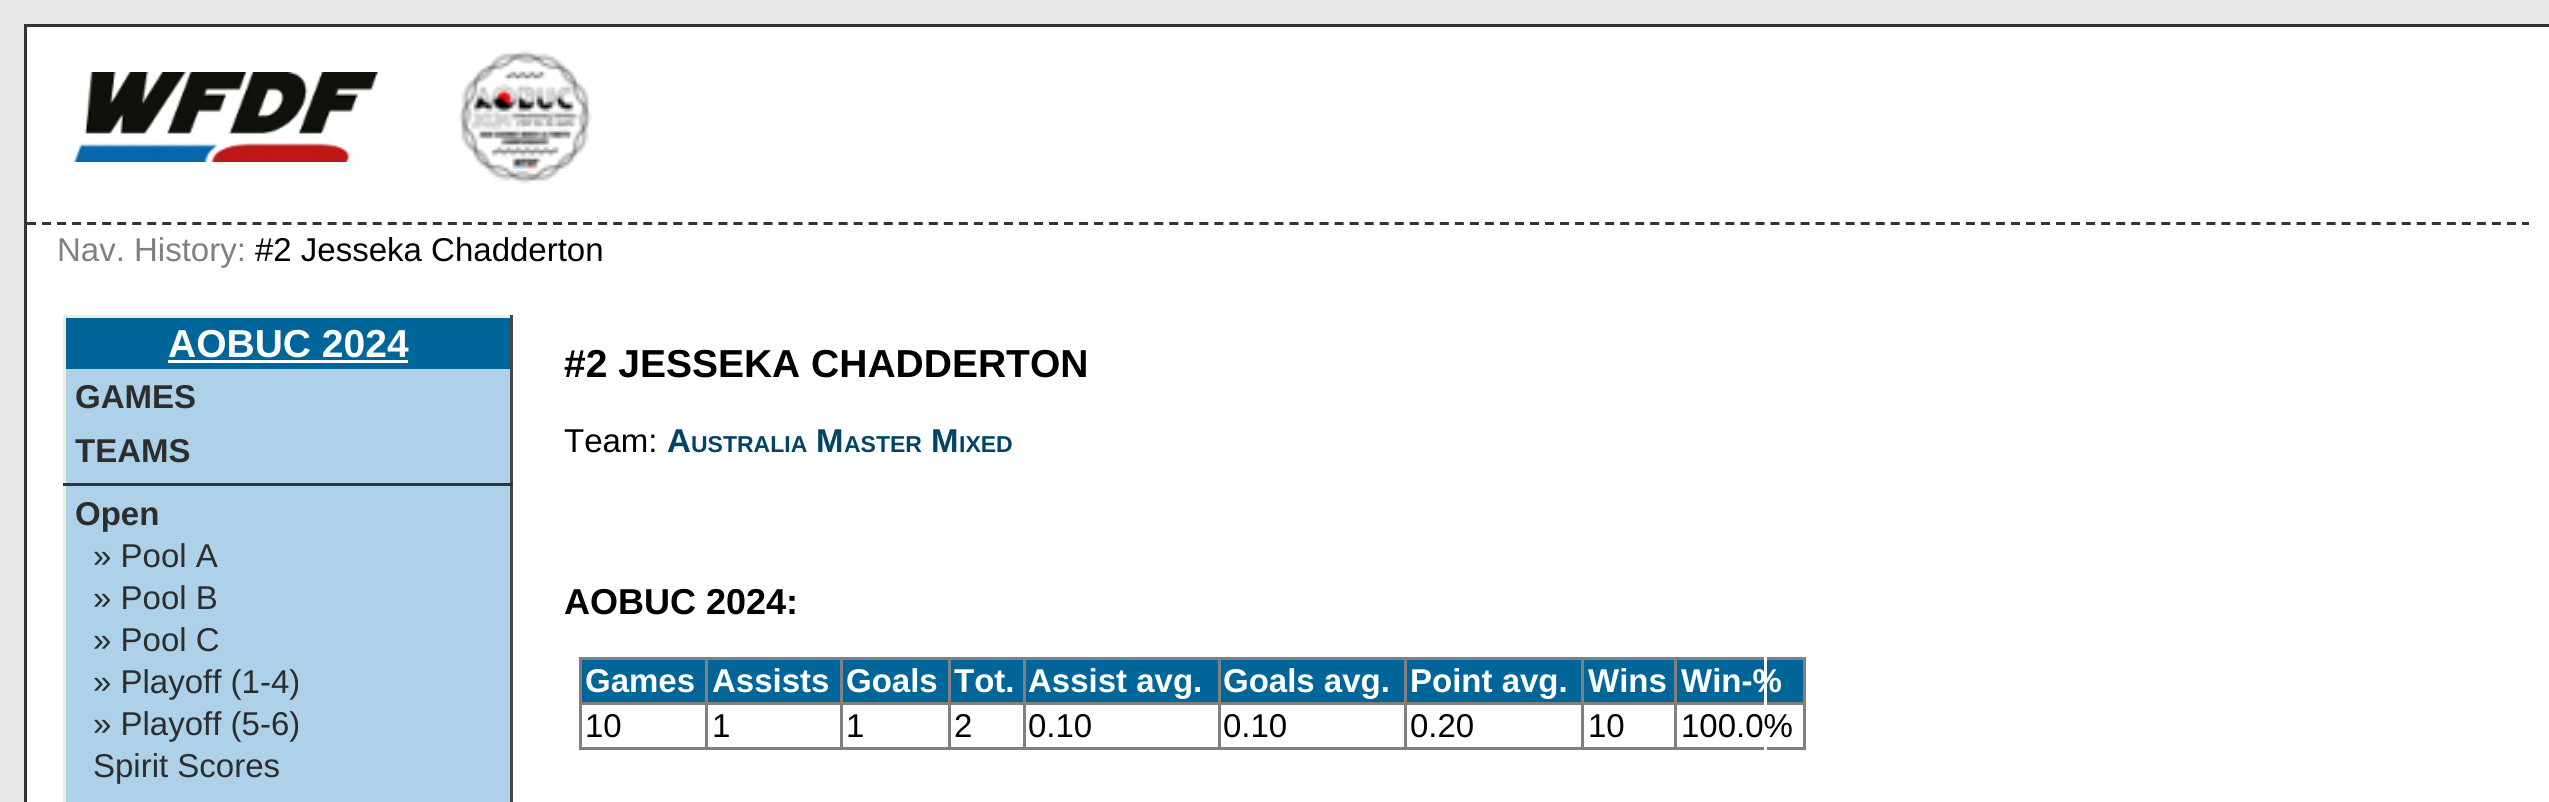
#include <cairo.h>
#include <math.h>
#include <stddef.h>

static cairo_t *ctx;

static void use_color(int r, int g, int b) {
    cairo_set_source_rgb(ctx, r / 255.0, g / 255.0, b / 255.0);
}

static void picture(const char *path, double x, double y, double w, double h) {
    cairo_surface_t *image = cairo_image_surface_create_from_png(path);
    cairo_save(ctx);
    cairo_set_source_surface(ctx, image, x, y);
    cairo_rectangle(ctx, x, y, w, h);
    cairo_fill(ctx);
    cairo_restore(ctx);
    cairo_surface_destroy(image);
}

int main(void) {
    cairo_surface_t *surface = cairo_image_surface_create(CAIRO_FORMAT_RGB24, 2549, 802);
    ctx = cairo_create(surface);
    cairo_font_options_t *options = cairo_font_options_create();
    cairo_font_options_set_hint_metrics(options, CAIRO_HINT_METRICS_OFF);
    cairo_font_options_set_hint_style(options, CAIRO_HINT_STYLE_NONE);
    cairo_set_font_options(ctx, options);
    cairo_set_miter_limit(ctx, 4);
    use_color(232, 232, 232);
    cairo_paint(ctx);
    use_color(255, 255, 255);
    cairo_rectangle(ctx, 25.5, 25.5, 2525, 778);
    cairo_fill_preserve(ctx);
    use_color(51, 51, 51);
    cairo_set_line_width(ctx, 3);
    cairo_stroke(ctx);
    cairo_new_path(ctx);
    cairo_move_to(ctx, 27, 223.5);
    cairo_line_to(ctx, 2529, 223.5);
    cairo_set_dash(ctx, (double[]){9, 6.03}, 2, 0);
    cairo_stroke(ctx);
    picture("img1.png", 72, 72, 306, 90);
    picture("img2.png", 458, 50, 134, 134);
    cairo_select_font_face(ctx, "Liberation Sans", CAIRO_FONT_SLANT_NORMAL, CAIRO_FONT_WEIGHT_NORMAL);
    cairo_set_font_size(ctx, 33);
    use_color(128, 128, 128);
    cairo_move_to(ctx, 57, 261);
    cairo_show_text(ctx, "Nav. History:");
    use_color(0, 0, 0);
    cairo_move_to(ctx, 255, 261);
    cairo_show_text(ctx, "#2 Jesseka Chadderton");
    use_color(128, 128, 128);
    cairo_rectangle(ctx, 579, 657, 1227, 3);
    cairo_fill(ctx);
    cairo_rectangle(ctx, 1803, 657, 3, 93);
    cairo_fill(ctx);
    cairo_rectangle(ctx, 579, 747, 1227, 3);
    cairo_fill(ctx);
    use_color(0, 102, 153);
    cairo_rectangle(ctx, 1677, 660, 126, 42);
    cairo_fill(ctx);
    use_color(128, 128, 128);
    cairo_rectangle(ctx, 1674, 702, 132, 3);
    cairo_fill(ctx);
    use_color(255, 255, 255);
    cairo_rectangle(ctx, 1764, 657, 3, 93);
    cairo_fill(ctx);
    use_color(172, 209, 233);
    cairo_rectangle(ctx, 66, 369, 444, 433);
    cairo_fill(ctx);
    use_color(238, 238, 221);
    cairo_rectangle(ctx, 63, 315, 450, 3);
    cairo_fill(ctx);
    use_color(70, 70, 70);
    cairo_rectangle(ctx, 510, 315, 3, 487);
    cairo_fill(ctx);
    use_color(238, 238, 221);
    cairo_rectangle(ctx, 63, 315, 3, 487);
    cairo_fill(ctx);
    use_color(0, 102, 153);
    cairo_rectangle(ctx, 66, 318, 444, 51);
    cairo_fill(ctx);
    cairo_select_font_face(ctx, "Liberation Sans", CAIRO_FONT_SLANT_NORMAL, CAIRO_FONT_WEIGHT_BOLD);
    cairo_set_font_size(ctx, 39);
    use_color(255, 255, 255);
    cairo_move_to(ctx, 168, 357);
    cairo_show_text(ctx, "AOBUC 2024");
    cairo_rectangle(ctx, 168, 360, 240, 3);
    cairo_fill(ctx);
    cairo_set_font_size(ctx, 33);
    use_color(45, 45, 45);
    cairo_move_to(ctx, 75, 408);
    cairo_show_text(ctx, "GAMES");
    cairo_move_to(ctx, 75, 462);
    cairo_show_text(ctx, "TEAMS");
    use_color(51, 51, 51);
    cairo_rectangle(ctx, 63, 483, 450, 3);
    cairo_fill(ctx);
    use_color(45, 45, 45);
    cairo_move_to(ctx, 75, 525);
    cairo_show_text(ctx, "Open");
    cairo_select_font_face(ctx, "Liberation Sans", CAIRO_FONT_SLANT_NORMAL, CAIRO_FONT_WEIGHT_NORMAL);
    cairo_move_to(ctx, 93, 567);
    cairo_show_text(ctx, "» Pool A");
    cairo_move_to(ctx, 93, 609);
    cairo_show_text(ctx, "» Pool B");
    cairo_move_to(ctx, 93, 651);
    cairo_show_text(ctx, "» Pool C");
    cairo_move_to(ctx, 93, 693);
    cairo_show_text(ctx, "» Playoff (1-4)");
    cairo_move_to(ctx, 93, 735);
    cairo_show_text(ctx, "» Playoff (5-6)");
    cairo_move_to(ctx, 93, 777);
    cairo_show_text(ctx, "Spirit Scores");
    cairo_select_font_face(ctx, "Liberation Sans", CAIRO_FONT_SLANT_NORMAL, CAIRO_FONT_WEIGHT_BOLD);
    cairo_set_font_size(ctx, 39);
    use_color(0, 0, 0);
    cairo_move_to(ctx, 564, 377);
    cairo_show_text(ctx, "#2 JESSEKA CHADDERTON");
    cairo_select_font_face(ctx, "Liberation Sans", CAIRO_FONT_SLANT_NORMAL, CAIRO_FONT_WEIGHT_NORMAL);
    cairo_set_font_size(ctx, 33);
    cairo_move_to(ctx, 564, 452);
    cairo_show_text(ctx, "Team:");
    cairo_select_font_face(ctx, "Liberation Sans", CAIRO_FONT_SLANT_NORMAL, CAIRO_FONT_WEIGHT_BOLD);
    use_color(0, 68, 102);
    cairo_move_to(ctx, 667, 452);
    cairo_show_text(ctx, "A");
    cairo_set_font_size(ctx, 23);
    cairo_move_to(ctx, 691, 452);
    cairo_show_text(ctx, "USTRALIA");
    cairo_set_font_size(ctx, 33);
    cairo_move_to(ctx, 816, 452);
    cairo_show_text(ctx, "M");
    cairo_set_font_size(ctx, 23);
    cairo_move_to(ctx, 844, 452);
    cairo_show_text(ctx, "ASTER");
    cairo_set_font_size(ctx, 33);
    cairo_move_to(ctx, 931, 452);
    cairo_show_text(ctx, "M");
    cairo_set_font_size(ctx, 23);
    cairo_move_to(ctx, 959, 452);
    cairo_show_text(ctx, "IXED");
    cairo_set_font_size(ctx, 36);
    use_color(0, 0, 0);
    cairo_move_to(ctx, 564, 614);
    cairo_show_text(ctx, "AOBUC 2024:");
    use_color(128, 128, 128);
    cairo_rectangle(ctx, 579, 657, 3, 93);
    cairo_fill(ctx);
    use_color(0, 102, 153);
    cairo_rectangle(ctx, 582, 660, 123, 42);
    cairo_fill(ctx);
    cairo_set_font_size(ctx, 33);
    use_color(255, 255, 255);
    cairo_move_to(ctx, 585, 692);
    cairo_show_text(ctx, "Games");
    use_color(0, 102, 153);
    cairo_rectangle(ctx, 708, 660, 132, 42);
    cairo_fill(ctx);
    use_color(128, 128, 128);
    cairo_rectangle(ctx, 1674, 702, 3, 48);
    cairo_fill(ctx);
    cairo_rectangle(ctx, 1581, 702, 96, 3);
    cairo_fill(ctx);
    cairo_rectangle(ctx, 1581, 702, 3, 48);
    cairo_fill(ctx);
    cairo_rectangle(ctx, 1404, 702, 180, 3);
    cairo_fill(ctx);
    cairo_rectangle(ctx, 1404, 702, 3, 48);
    cairo_fill(ctx);
    cairo_rectangle(ctx, 1218, 702, 189, 3);
    cairo_fill(ctx);
    cairo_rectangle(ctx, 1218, 702, 3, 48);
    cairo_fill(ctx);
    cairo_rectangle(ctx, 1023, 702, 198, 3);
    cairo_fill(ctx);
    cairo_rectangle(ctx, 1023, 702, 3, 48);
    cairo_fill(ctx);
    cairo_rectangle(ctx, 948, 702, 78, 3);
    cairo_fill(ctx);
    cairo_rectangle(ctx, 948, 702, 3, 48);
    cairo_fill(ctx);
    cairo_rectangle(ctx, 840, 702, 111, 3);
    cairo_fill(ctx);
    cairo_rectangle(ctx, 840, 702, 3, 48);
    cairo_fill(ctx);
    cairo_rectangle(ctx, 705, 702, 138, 3);
    cairo_fill(ctx);
    cairo_rectangle(ctx, 705, 702, 3, 48);
    cairo_fill(ctx);
    cairo_rectangle(ctx, 579, 702, 129, 3);
    cairo_fill(ctx);
    cairo_rectangle(ctx, 705, 657, 3, 48);
    cairo_fill(ctx);
    use_color(255, 255, 255);
    cairo_move_to(ctx, 712, 692);
    cairo_show_text(ctx, "Assists");
    use_color(0, 102, 153);
    cairo_rectangle(ctx, 843, 660, 105, 42);
    cairo_fill(ctx);
    use_color(128, 128, 128);
    cairo_rectangle(ctx, 840, 657, 3, 48);
    cairo_fill(ctx);
    use_color(255, 255, 255);
    cairo_move_to(ctx, 846, 692);
    cairo_show_text(ctx, "Goals");
    use_color(0, 102, 153);
    cairo_rectangle(ctx, 951, 660, 72, 42);
    cairo_fill(ctx);
    use_color(128, 128, 128);
    cairo_rectangle(ctx, 948, 657, 3, 48);
    cairo_fill(ctx);
    use_color(255, 255, 255);
    cairo_move_to(ctx, 954, 692);
    cairo_show_text(ctx, "Tot.");
    use_color(0, 102, 153);
    cairo_rectangle(ctx, 1026, 660, 192, 42);
    cairo_fill(ctx);
    use_color(128, 128, 128);
    cairo_rectangle(ctx, 1023, 657, 3, 48);
    cairo_fill(ctx);
    use_color(255, 255, 255);
    cairo_move_to(ctx, 1028, 692);
    cairo_show_text(ctx, "Assist avg.");
    use_color(0, 102, 153);
    cairo_rectangle(ctx, 1221, 660, 183, 42);
    cairo_fill(ctx);
    use_color(128, 128, 128);
    cairo_rectangle(ctx, 1218, 657, 3, 48);
    cairo_fill(ctx);
    use_color(255, 255, 255);
    cairo_move_to(ctx, 1223, 692);
    cairo_show_text(ctx, "Goals avg.");
    use_color(0, 102, 153);
    cairo_rectangle(ctx, 1407, 660, 174, 42);
    cairo_fill(ctx);
    use_color(128, 128, 128);
    cairo_rectangle(ctx, 1404, 657, 3, 48);
    cairo_fill(ctx);
    use_color(255, 255, 255);
    cairo_move_to(ctx, 1410, 692);
    cairo_show_text(ctx, "Point avg.");
    use_color(0, 102, 153);
    cairo_rectangle(ctx, 1584, 660, 90, 42);
    cairo_fill(ctx);
    use_color(128, 128, 128);
    cairo_rectangle(ctx, 1581, 657, 3, 48);
    cairo_fill(ctx);
    use_color(255, 255, 255);
    cairo_move_to(ctx, 1588, 692);
    cairo_show_text(ctx, "Wins");
    use_color(128, 128, 128);
    cairo_rectangle(ctx, 1674, 657, 3, 48);
    cairo_fill(ctx);
    use_color(255, 255, 255);
    cairo_move_to(ctx, 1681, 692);
    cairo_show_text(ctx, "Win-%");
    cairo_select_font_face(ctx, "Liberation Sans", CAIRO_FONT_SLANT_NORMAL, CAIRO_FONT_WEIGHT_NORMAL);
    use_color(0, 0, 0);
    cairo_move_to(ctx, 585, 737);
    cairo_show_text(ctx, "10");
    cairo_move_to(ctx, 712, 737);
    cairo_show_text(ctx, "1");
    cairo_move_to(ctx, 846, 737);
    cairo_show_text(ctx, "1");
    cairo_move_to(ctx, 954, 737);
    cairo_show_text(ctx, "2");
    cairo_move_to(ctx, 1028, 737);
    cairo_show_text(ctx, "0.10");
    cairo_move_to(ctx, 1223, 737);
    cairo_show_text(ctx, "0.10");
    cairo_move_to(ctx, 1410, 737);
    cairo_show_text(ctx, "0.20");
    cairo_move_to(ctx, 1588, 737);
    cairo_show_text(ctx, "10");
    cairo_move_to(ctx, 1681, 737);
    cairo_show_text(ctx, "100.0%");
    cairo_surface_write_to_png(surface, "result.png");
    cairo_font_options_destroy(options);
    cairo_destroy(ctx);
    cairo_surface_destroy(surface);
    return 0;
}
